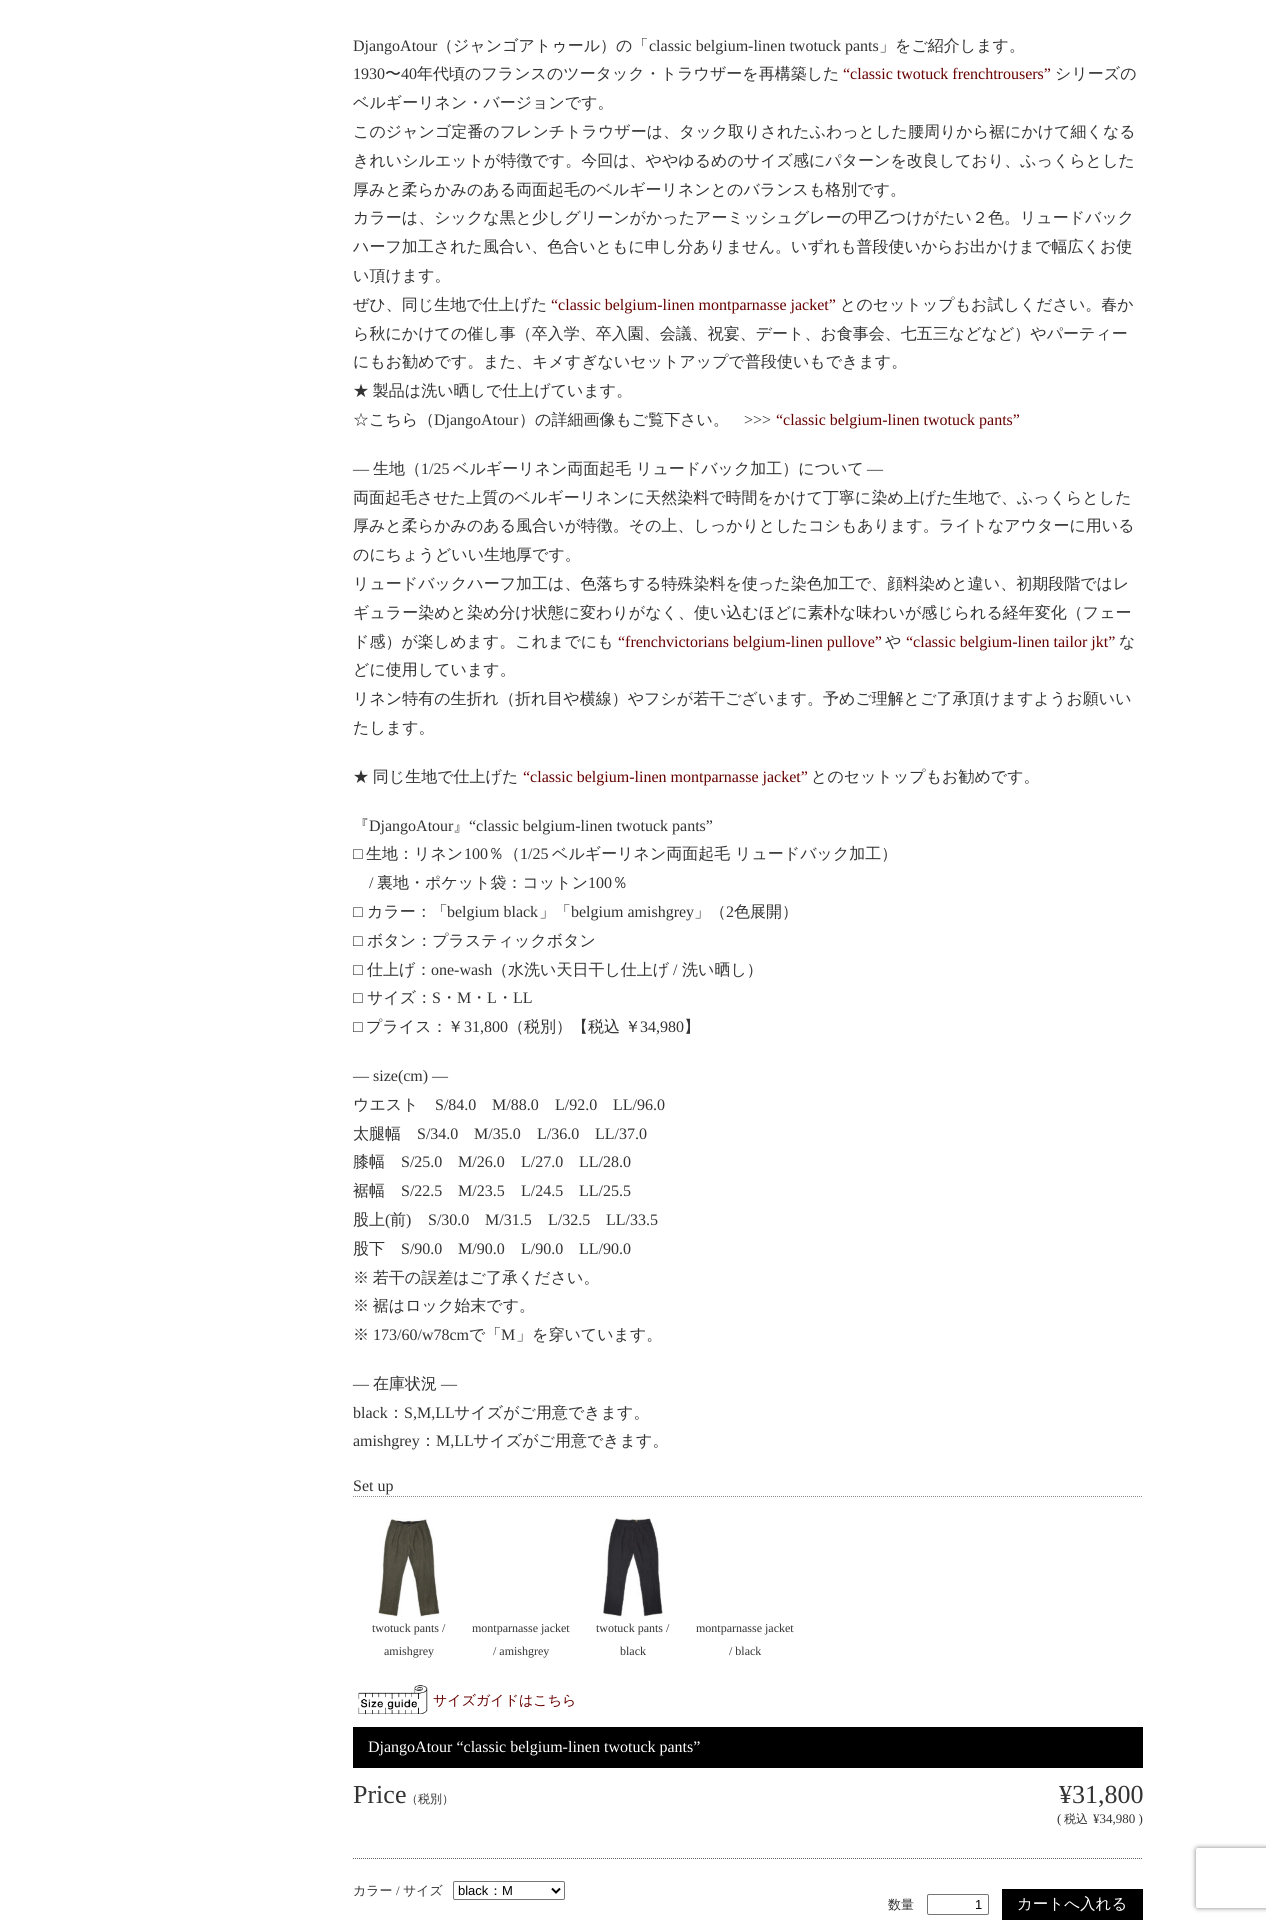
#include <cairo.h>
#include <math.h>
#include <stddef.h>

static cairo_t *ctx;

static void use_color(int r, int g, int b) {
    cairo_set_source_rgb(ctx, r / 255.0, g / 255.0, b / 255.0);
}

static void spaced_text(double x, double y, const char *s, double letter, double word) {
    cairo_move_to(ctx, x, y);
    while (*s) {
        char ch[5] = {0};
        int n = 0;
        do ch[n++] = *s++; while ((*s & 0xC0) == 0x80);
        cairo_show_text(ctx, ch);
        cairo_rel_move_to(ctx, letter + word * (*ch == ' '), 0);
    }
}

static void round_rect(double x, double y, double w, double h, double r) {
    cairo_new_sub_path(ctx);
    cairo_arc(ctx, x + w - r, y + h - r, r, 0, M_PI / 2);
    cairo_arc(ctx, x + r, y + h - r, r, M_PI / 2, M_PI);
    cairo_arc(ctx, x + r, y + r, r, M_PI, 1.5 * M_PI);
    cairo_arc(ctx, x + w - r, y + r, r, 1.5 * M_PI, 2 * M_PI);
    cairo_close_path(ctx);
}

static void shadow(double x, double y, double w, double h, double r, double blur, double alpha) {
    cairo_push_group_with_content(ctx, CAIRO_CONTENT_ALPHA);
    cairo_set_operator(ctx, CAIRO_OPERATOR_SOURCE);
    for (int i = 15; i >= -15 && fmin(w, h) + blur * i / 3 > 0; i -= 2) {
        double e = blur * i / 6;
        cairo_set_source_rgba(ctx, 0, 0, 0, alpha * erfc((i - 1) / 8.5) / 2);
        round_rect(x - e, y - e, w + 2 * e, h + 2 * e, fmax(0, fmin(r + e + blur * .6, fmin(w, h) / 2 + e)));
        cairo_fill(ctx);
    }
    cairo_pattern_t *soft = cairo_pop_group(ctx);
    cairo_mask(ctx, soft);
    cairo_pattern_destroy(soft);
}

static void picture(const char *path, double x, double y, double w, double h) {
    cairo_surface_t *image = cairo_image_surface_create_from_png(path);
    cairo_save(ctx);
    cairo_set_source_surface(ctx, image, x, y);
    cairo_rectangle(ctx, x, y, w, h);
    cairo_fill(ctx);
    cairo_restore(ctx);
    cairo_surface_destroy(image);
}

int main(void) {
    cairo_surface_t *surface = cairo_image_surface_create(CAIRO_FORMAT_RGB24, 1266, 1922);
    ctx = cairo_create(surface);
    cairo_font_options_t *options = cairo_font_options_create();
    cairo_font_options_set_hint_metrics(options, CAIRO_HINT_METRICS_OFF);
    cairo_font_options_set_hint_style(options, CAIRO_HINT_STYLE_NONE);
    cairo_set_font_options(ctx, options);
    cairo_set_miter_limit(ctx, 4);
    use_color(255, 255, 255);
    cairo_paint(ctx);
    cairo_select_font_face(ctx, "Liberation Serif", CAIRO_FONT_SLANT_NORMAL, CAIRO_FONT_WEIGHT_NORMAL);
    cairo_set_font_size(ctx, 16);
    use_color(51, 51, 51);
    cairo_move_to(ctx, 353, 51);
    cairo_show_text(ctx, "DjangoAtour");
    cairo_select_font_face(ctx, "WenQuanYi Zen Hei Medium", CAIRO_FONT_SLANT_NORMAL, CAIRO_FONT_WEIGHT_NORMAL);
    cairo_move_to(ctx, 437, 51);
    cairo_show_text(ctx, "（ジャンゴアトゥール）の「");
    cairo_select_font_face(ctx, "Liberation Serif", CAIRO_FONT_SLANT_NORMAL, CAIRO_FONT_WEIGHT_NORMAL);
    cairo_move_to(ctx, 649, 51);
    cairo_show_text(ctx, "classic belgium-linen twotuck pants");
    cairo_select_font_face(ctx, "WenQuanYi Zen Hei Medium", CAIRO_FONT_SLANT_NORMAL, CAIRO_FONT_WEIGHT_NORMAL);
    cairo_move_to(ctx, 879, 51);
    cairo_show_text(ctx, "」をご紹介します。");
    cairo_select_font_face(ctx, "Liberation Serif", CAIRO_FONT_SLANT_NORMAL, CAIRO_FONT_WEIGHT_NORMAL);
    cairo_move_to(ctx, 353, 79);
    cairo_show_text(ctx, "1930");
    cairo_select_font_face(ctx, "WenQuanYi Zen Hei Medium", CAIRO_FONT_SLANT_NORMAL, CAIRO_FONT_WEIGHT_NORMAL);
    cairo_move_to(ctx, 385, 79);
    cairo_show_text(ctx, "〜");
    cairo_select_font_face(ctx, "Liberation Serif", CAIRO_FONT_SLANT_NORMAL, CAIRO_FONT_WEIGHT_NORMAL);
    cairo_move_to(ctx, 401, 79);
    cairo_show_text(ctx, "40");
    cairo_select_font_face(ctx, "WenQuanYi Zen Hei Medium", CAIRO_FONT_SLANT_NORMAL, CAIRO_FONT_WEIGHT_NORMAL);
    cairo_move_to(ctx, 417, 79);
    cairo_show_text(ctx, "年代頃のフランスのツータック・トラウザーを再構築した");
    cairo_select_font_face(ctx, "Liberation Serif", CAIRO_FONT_SLANT_NORMAL, CAIRO_FONT_WEIGHT_NORMAL);
    use_color(102, 0, 0);
    cairo_move_to(ctx, 843, 79);
    cairo_show_text(ctx, "“classic twotuck frenchtrousers”");
    cairo_select_font_face(ctx, "WenQuanYi Zen Hei Medium", CAIRO_FONT_SLANT_NORMAL, CAIRO_FONT_WEIGHT_NORMAL);
    use_color(51, 51, 51);
    cairo_move_to(ctx, 1055, 79);
    cairo_show_text(ctx, "シリーズの");
    cairo_move_to(ctx, 353, 108);
    cairo_show_text(ctx, "ベルギーリネン・バージョンです。");
    cairo_move_to(ctx, 353, 137);
    cairo_show_text(ctx, "このジャンゴ定番のフレンチトラウザーは、タック取りされたふわっとした腰周りから裾にかけて細くなる");
    cairo_move_to(ctx, 353, 166);
    cairo_show_text(ctx, "きれいシルエットが特徴です。今回は、ややゆるめのサイズ感にパターンを改良しており、ふっくらとした");
    cairo_move_to(ctx, 353, 195);
    cairo_show_text(ctx, "厚みと柔らかみのある両面起毛のベルギーリネンとのバランスも格別です。");
    cairo_move_to(ctx, 353, 223);
    cairo_show_text(ctx, "カラーは、シックな黒と少しグリーンがかったアーミッシュグレーの甲乙つけがたい２色。リュードバック");
    cairo_move_to(ctx, 353, 252);
    cairo_show_text(ctx, "ハーフ加工された風合い、色合いともに申し分ありません。いずれも普段使いからお出かけまで幅広くお使");
    cairo_move_to(ctx, 353, 281);
    cairo_show_text(ctx, "い頂けます。");
    cairo_move_to(ctx, 353, 310);
    cairo_show_text(ctx, "ぜひ、同じ生地で仕上げた");
    cairo_select_font_face(ctx, "Liberation Serif", CAIRO_FONT_SLANT_NORMAL, CAIRO_FONT_WEIGHT_NORMAL);
    use_color(102, 0, 0);
    cairo_move_to(ctx, 551, 310);
    cairo_show_text(ctx, "“classic belgium-linen montparnasse jacket”");
    cairo_select_font_face(ctx, "WenQuanYi Zen Hei Medium", CAIRO_FONT_SLANT_NORMAL, CAIRO_FONT_WEIGHT_NORMAL);
    use_color(51, 51, 51);
    cairo_move_to(ctx, 840, 310);
    cairo_show_text(ctx, "とのセットップもお試しください。春か");
    cairo_move_to(ctx, 353, 339);
    cairo_show_text(ctx, "ら秋にかけての催し事（卒入学、卒入園、会議、祝宴、デート、お食事会、七五三などなど）やパーティー");
    cairo_move_to(ctx, 353, 367);
    cairo_show_text(ctx, "にもお勧めです。また、キメすぎないセットアップで普段使いもできます。");
    spaced_text(353, 396, "★ 製品は洗い晒しで仕上げています。", 0, -1);
    cairo_move_to(ctx, 353, 425);
    cairo_show_text(ctx, "☆こちら（");
    cairo_select_font_face(ctx, "Liberation Serif", CAIRO_FONT_SLANT_NORMAL, CAIRO_FONT_WEIGHT_NORMAL);
    cairo_move_to(ctx, 434, 425);
    cairo_show_text(ctx, "DjangoAtour");
    cairo_select_font_face(ctx, "WenQuanYi Zen Hei Medium", CAIRO_FONT_SLANT_NORMAL, CAIRO_FONT_WEIGHT_NORMAL);
    cairo_move_to(ctx, 519, 425);
    cairo_show_text(ctx, "）の詳細画像もご覧下さい。");
    cairo_select_font_face(ctx, "Liberation Serif", CAIRO_FONT_SLANT_NORMAL, CAIRO_FONT_WEIGHT_NORMAL);
    cairo_move_to(ctx, 744, 425);
    cairo_show_text(ctx, ">>>");
    use_color(102, 0, 0);
    cairo_move_to(ctx, 776, 425);
    cairo_show_text(ctx, "“classic belgium-linen twotuck pants”");
    use_color(51, 51, 51);
    cairo_move_to(ctx, 353, 474);
    cairo_show_text(ctx, "—");
    cairo_select_font_face(ctx, "WenQuanYi Zen Hei Medium", CAIRO_FONT_SLANT_NORMAL, CAIRO_FONT_WEIGHT_NORMAL);
    cairo_move_to(ctx, 373, 474);
    cairo_show_text(ctx, "生地（");
    cairo_select_font_face(ctx, "Liberation Serif", CAIRO_FONT_SLANT_NORMAL, CAIRO_FONT_WEIGHT_NORMAL);
    cairo_move_to(ctx, 421, 474);
    cairo_show_text(ctx, "1/25");
    cairo_select_font_face(ctx, "WenQuanYi Zen Hei Medium", CAIRO_FONT_SLANT_NORMAL, CAIRO_FONT_WEIGHT_NORMAL);
    cairo_move_to(ctx, 453, 474);
    cairo_show_text(ctx, "ベルギーリネン両面起毛 リュードバック加工）について");
    cairo_select_font_face(ctx, "Liberation Serif", CAIRO_FONT_SLANT_NORMAL, CAIRO_FONT_WEIGHT_NORMAL);
    cairo_move_to(ctx, 867, 474);
    cairo_show_text(ctx, "—");
    cairo_select_font_face(ctx, "WenQuanYi Zen Hei Medium", CAIRO_FONT_SLANT_NORMAL, CAIRO_FONT_WEIGHT_NORMAL);
    cairo_move_to(ctx, 353, 503);
    cairo_show_text(ctx, "両面起毛させた上質のベルギーリネンに天然染料で時間をかけて丁寧に染め上げた生地で、ふっくらとした");
    cairo_move_to(ctx, 353, 531);
    cairo_show_text(ctx, "厚みと柔らかみのある風合いが特徴。その上、しっかりとしたコシもあります。ライトなアウターに用いる");
    cairo_move_to(ctx, 353, 560);
    cairo_show_text(ctx, "のにちょうどいい生地厚です。");
    cairo_move_to(ctx, 353, 589);
    cairo_show_text(ctx, "リュードバックハーフ加工は、色落ちする特殊染料を使った染色加工で、顔料染めと違い、初期段階ではレ");
    cairo_move_to(ctx, 353, 618);
    cairo_show_text(ctx, "ギュラー染めと染め分け状態に変わりがなく、使い込むほどに素朴な味わいが感じられる経年変化（フェー");
    cairo_move_to(ctx, 353, 647);
    cairo_show_text(ctx, "ド感）が楽しめます。これまでにも");
    cairo_select_font_face(ctx, "Liberation Serif", CAIRO_FONT_SLANT_NORMAL, CAIRO_FONT_WEIGHT_NORMAL);
    use_color(102, 0, 0);
    cairo_move_to(ctx, 618, 647);
    cairo_show_text(ctx, "“frenchvictorians belgium-linen pullove”");
    cairo_select_font_face(ctx, "WenQuanYi Zen Hei Medium", CAIRO_FONT_SLANT_NORMAL, CAIRO_FONT_WEIGHT_NORMAL);
    use_color(51, 51, 51);
    cairo_move_to(ctx, 885, 647);
    cairo_show_text(ctx, "や");
    cairo_select_font_face(ctx, "Liberation Serif", CAIRO_FONT_SLANT_NORMAL, CAIRO_FONT_WEIGHT_NORMAL);
    use_color(102, 0, 0);
    cairo_move_to(ctx, 906, 647);
    cairo_show_text(ctx, "“classic belgium-linen tailor jkt”");
    cairo_select_font_face(ctx, "WenQuanYi Zen Hei Medium", CAIRO_FONT_SLANT_NORMAL, CAIRO_FONT_WEIGHT_NORMAL);
    use_color(51, 51, 51);
    cairo_move_to(ctx, 1119, 647);
    cairo_show_text(ctx, "な");
    cairo_move_to(ctx, 353, 675);
    cairo_show_text(ctx, "どに使用しています。");
    cairo_move_to(ctx, 353, 704);
    cairo_show_text(ctx, "リネン特有の生折れ（折れ目や横線）やフシが若干ございます。予めご理解とご了承頂けますようお願いい");
    cairo_move_to(ctx, 353, 733);
    cairo_show_text(ctx, "たします。");
    spaced_text(353, 782, "★ 同じ生地で仕上げた", 0, -1);
    cairo_select_font_face(ctx, "Liberation Serif", CAIRO_FONT_SLANT_NORMAL, CAIRO_FONT_WEIGHT_NORMAL);
    use_color(102, 0, 0);
    cairo_move_to(ctx, 523, 782);
    cairo_show_text(ctx, "“classic belgium-linen montparnasse jacket”");
    cairo_select_font_face(ctx, "WenQuanYi Zen Hei Medium", CAIRO_FONT_SLANT_NORMAL, CAIRO_FONT_WEIGHT_NORMAL);
    use_color(51, 51, 51);
    cairo_move_to(ctx, 811, 782);
    cairo_show_text(ctx, "とのセットップもお勧めです。");
    cairo_move_to(ctx, 353, 831);
    cairo_show_text(ctx, "『");
    cairo_select_font_face(ctx, "Liberation Serif", CAIRO_FONT_SLANT_NORMAL, CAIRO_FONT_WEIGHT_NORMAL);
    cairo_move_to(ctx, 369, 831);
    cairo_show_text(ctx, "DjangoAtour");
    cairo_select_font_face(ctx, "WenQuanYi Zen Hei Medium", CAIRO_FONT_SLANT_NORMAL, CAIRO_FONT_WEIGHT_NORMAL);
    cairo_move_to(ctx, 453, 831);
    cairo_show_text(ctx, "』");
    cairo_select_font_face(ctx, "Liberation Serif", CAIRO_FONT_SLANT_NORMAL, CAIRO_FONT_WEIGHT_NORMAL);
    cairo_move_to(ctx, 469, 831);
    cairo_show_text(ctx, "“classic belgium-linen twotuck pants”");
    cairo_move_to(ctx, 353, 859);
    cairo_show_text(ctx, "□");
    cairo_select_font_face(ctx, "WenQuanYi Zen Hei Medium", CAIRO_FONT_SLANT_NORMAL, CAIRO_FONT_WEIGHT_NORMAL);
    cairo_move_to(ctx, 366, 859);
    cairo_show_text(ctx, "生地：リネン");
    cairo_select_font_face(ctx, "Liberation Serif", CAIRO_FONT_SLANT_NORMAL, CAIRO_FONT_WEIGHT_NORMAL);
    cairo_move_to(ctx, 464, 859);
    cairo_show_text(ctx, "100");
    cairo_select_font_face(ctx, "WenQuanYi Zen Hei Medium", CAIRO_FONT_SLANT_NORMAL, CAIRO_FONT_WEIGHT_NORMAL);
    cairo_move_to(ctx, 488, 859);
    cairo_show_text(ctx, "％（");
    cairo_select_font_face(ctx, "Liberation Serif", CAIRO_FONT_SLANT_NORMAL, CAIRO_FONT_WEIGHT_NORMAL);
    cairo_move_to(ctx, 520, 859);
    cairo_show_text(ctx, "1/25");
    cairo_select_font_face(ctx, "WenQuanYi Zen Hei Medium", CAIRO_FONT_SLANT_NORMAL, CAIRO_FONT_WEIGHT_NORMAL);
    cairo_move_to(ctx, 552, 859);
    cairo_show_text(ctx, "ベルギーリネン両面起毛 リュードバック加工）");
    cairo_select_font_face(ctx, "Liberation Serif", CAIRO_FONT_SLANT_NORMAL, CAIRO_FONT_WEIGHT_NORMAL);
    cairo_move_to(ctx, 369, 888);
    cairo_show_text(ctx, "/");
    cairo_select_font_face(ctx, "WenQuanYi Zen Hei Medium", CAIRO_FONT_SLANT_NORMAL, CAIRO_FONT_WEIGHT_NORMAL);
    cairo_move_to(ctx, 377, 888);
    cairo_show_text(ctx, "裏地・ポケット袋：コットン");
    cairo_select_font_face(ctx, "Liberation Serif", CAIRO_FONT_SLANT_NORMAL, CAIRO_FONT_WEIGHT_NORMAL);
    cairo_move_to(ctx, 588, 888);
    cairo_show_text(ctx, "100");
    cairo_select_font_face(ctx, "WenQuanYi Zen Hei Medium", CAIRO_FONT_SLANT_NORMAL, CAIRO_FONT_WEIGHT_NORMAL);
    cairo_move_to(ctx, 612, 888);
    cairo_show_text(ctx, "％");
    cairo_select_font_face(ctx, "Liberation Serif", CAIRO_FONT_SLANT_NORMAL, CAIRO_FONT_WEIGHT_NORMAL);
    cairo_move_to(ctx, 353, 917);
    cairo_show_text(ctx, "□");
    cairo_select_font_face(ctx, "WenQuanYi Zen Hei Medium", CAIRO_FONT_SLANT_NORMAL, CAIRO_FONT_WEIGHT_NORMAL);
    cairo_move_to(ctx, 367, 917);
    cairo_show_text(ctx, "カラー：「");
    cairo_select_font_face(ctx, "Liberation Serif", CAIRO_FONT_SLANT_NORMAL, CAIRO_FONT_WEIGHT_NORMAL);
    cairo_move_to(ctx, 447, 917);
    cairo_show_text(ctx, "belgium black");
    cairo_select_font_face(ctx, "WenQuanYi Zen Hei Medium", CAIRO_FONT_SLANT_NORMAL, CAIRO_FONT_WEIGHT_NORMAL);
    cairo_move_to(ctx, 539, 917);
    cairo_show_text(ctx, "」「");
    cairo_select_font_face(ctx, "Liberation Serif", CAIRO_FONT_SLANT_NORMAL, CAIRO_FONT_WEIGHT_NORMAL);
    cairo_move_to(ctx, 571, 917);
    cairo_show_text(ctx, "belgium amishgrey");
    cairo_select_font_face(ctx, "WenQuanYi Zen Hei Medium", CAIRO_FONT_SLANT_NORMAL, CAIRO_FONT_WEIGHT_NORMAL);
    cairo_move_to(ctx, 694, 917);
    cairo_show_text(ctx, "」（");
    cairo_select_font_face(ctx, "Liberation Serif", CAIRO_FONT_SLANT_NORMAL, CAIRO_FONT_WEIGHT_NORMAL);
    cairo_move_to(ctx, 726, 917);
    cairo_show_text(ctx, "2");
    cairo_select_font_face(ctx, "WenQuanYi Zen Hei Medium", CAIRO_FONT_SLANT_NORMAL, CAIRO_FONT_WEIGHT_NORMAL);
    cairo_move_to(ctx, 734, 917);
    cairo_show_text(ctx, "色展開）");
    cairo_select_font_face(ctx, "Liberation Serif", CAIRO_FONT_SLANT_NORMAL, CAIRO_FONT_WEIGHT_NORMAL);
    cairo_move_to(ctx, 353, 946);
    cairo_show_text(ctx, "□");
    cairo_select_font_face(ctx, "WenQuanYi Zen Hei Medium", CAIRO_FONT_SLANT_NORMAL, CAIRO_FONT_WEIGHT_NORMAL);
    cairo_move_to(ctx, 367, 946);
    cairo_show_text(ctx, "ボタン：プラスティックボタン");
    cairo_select_font_face(ctx, "Liberation Serif", CAIRO_FONT_SLANT_NORMAL, CAIRO_FONT_WEIGHT_NORMAL);
    cairo_move_to(ctx, 353, 975);
    cairo_show_text(ctx, "□");
    cairo_select_font_face(ctx, "WenQuanYi Zen Hei Medium", CAIRO_FONT_SLANT_NORMAL, CAIRO_FONT_WEIGHT_NORMAL);
    cairo_move_to(ctx, 367, 975);
    cairo_show_text(ctx, "仕上げ：");
    cairo_select_font_face(ctx, "Liberation Serif", CAIRO_FONT_SLANT_NORMAL, CAIRO_FONT_WEIGHT_NORMAL);
    cairo_move_to(ctx, 431, 975);
    cairo_show_text(ctx, "one-wash");
    cairo_select_font_face(ctx, "WenQuanYi Zen Hei Medium", CAIRO_FONT_SLANT_NORMAL, CAIRO_FONT_WEIGHT_NORMAL);
    cairo_move_to(ctx, 492, 975);
    cairo_show_text(ctx, "（水洗い天日干し仕上げ");
    cairo_select_font_face(ctx, "Liberation Serif", CAIRO_FONT_SLANT_NORMAL, CAIRO_FONT_WEIGHT_NORMAL);
    cairo_move_to(ctx, 673, 975);
    cairo_show_text(ctx, "/");
    cairo_select_font_face(ctx, "WenQuanYi Zen Hei Medium", CAIRO_FONT_SLANT_NORMAL, CAIRO_FONT_WEIGHT_NORMAL);
    cairo_move_to(ctx, 682, 975);
    cairo_show_text(ctx, "洗い晒し）");
    cairo_select_font_face(ctx, "Liberation Serif", CAIRO_FONT_SLANT_NORMAL, CAIRO_FONT_WEIGHT_NORMAL);
    cairo_move_to(ctx, 353, 1003);
    cairo_show_text(ctx, "□");
    cairo_select_font_face(ctx, "WenQuanYi Zen Hei Medium", CAIRO_FONT_SLANT_NORMAL, CAIRO_FONT_WEIGHT_NORMAL);
    cairo_move_to(ctx, 367, 1003);
    cairo_show_text(ctx, "サイズ：");
    cairo_select_font_face(ctx, "Liberation Serif", CAIRO_FONT_SLANT_NORMAL, CAIRO_FONT_WEIGHT_NORMAL);
    cairo_move_to(ctx, 432, 1003);
    cairo_show_text(ctx, "S");
    cairo_select_font_face(ctx, "WenQuanYi Zen Hei Medium", CAIRO_FONT_SLANT_NORMAL, CAIRO_FONT_WEIGHT_NORMAL);
    cairo_move_to(ctx, 441, 1003);
    cairo_show_text(ctx, "・");
    cairo_select_font_face(ctx, "Liberation Serif", CAIRO_FONT_SLANT_NORMAL, CAIRO_FONT_WEIGHT_NORMAL);
    cairo_move_to(ctx, 457, 1003);
    cairo_show_text(ctx, "M");
    cairo_select_font_face(ctx, "WenQuanYi Zen Hei Medium", CAIRO_FONT_SLANT_NORMAL, CAIRO_FONT_WEIGHT_NORMAL);
    cairo_move_to(ctx, 471, 1003);
    cairo_show_text(ctx, "・");
    cairo_select_font_face(ctx, "Liberation Serif", CAIRO_FONT_SLANT_NORMAL, CAIRO_FONT_WEIGHT_NORMAL);
    cairo_move_to(ctx, 487, 1003);
    cairo_show_text(ctx, "L");
    cairo_select_font_face(ctx, "WenQuanYi Zen Hei Medium", CAIRO_FONT_SLANT_NORMAL, CAIRO_FONT_WEIGHT_NORMAL);
    cairo_move_to(ctx, 497, 1003);
    cairo_show_text(ctx, "・");
    cairo_select_font_face(ctx, "Liberation Serif", CAIRO_FONT_SLANT_NORMAL, CAIRO_FONT_WEIGHT_NORMAL);
    cairo_move_to(ctx, 513, 1003);
    cairo_show_text(ctx, "LL");
    cairo_move_to(ctx, 353, 1032);
    cairo_show_text(ctx, "□");
    cairo_select_font_face(ctx, "WenQuanYi Zen Hei Medium", CAIRO_FONT_SLANT_NORMAL, CAIRO_FONT_WEIGHT_NORMAL);
    cairo_move_to(ctx, 366, 1032);
    cairo_show_text(ctx, "プライス：￥");
    cairo_select_font_face(ctx, "Liberation Serif", CAIRO_FONT_SLANT_NORMAL, CAIRO_FONT_WEIGHT_NORMAL);
    cairo_move_to(ctx, 464, 1032);
    cairo_show_text(ctx, "31,800");
    cairo_select_font_face(ctx, "WenQuanYi Zen Hei Medium", CAIRO_FONT_SLANT_NORMAL, CAIRO_FONT_WEIGHT_NORMAL);
    cairo_move_to(ctx, 508, 1032);
    cairo_show_text(ctx, "（税別）【税込 ￥");
    cairo_select_font_face(ctx, "Liberation Serif", CAIRO_FONT_SLANT_NORMAL, CAIRO_FONT_WEIGHT_NORMAL);
    cairo_move_to(ctx, 640, 1032);
    cairo_show_text(ctx, "34,980");
    cairo_select_font_face(ctx, "WenQuanYi Zen Hei Medium", CAIRO_FONT_SLANT_NORMAL, CAIRO_FONT_WEIGHT_NORMAL);
    cairo_move_to(ctx, 684, 1032);
    cairo_show_text(ctx, "】");
    cairo_select_font_face(ctx, "Liberation Serif", CAIRO_FONT_SLANT_NORMAL, CAIRO_FONT_WEIGHT_NORMAL);
    cairo_move_to(ctx, 353, 1081);
    cairo_show_text(ctx, "— size(cm) —");
    cairo_select_font_face(ctx, "WenQuanYi Zen Hei Medium", CAIRO_FONT_SLANT_NORMAL, CAIRO_FONT_WEIGHT_NORMAL);
    cairo_move_to(ctx, 353, 1110);
    cairo_show_text(ctx, "ウエスト");
    cairo_select_font_face(ctx, "Liberation Serif", CAIRO_FONT_SLANT_NORMAL, CAIRO_FONT_WEIGHT_NORMAL);
    cairo_move_to(ctx, 435, 1110);
    cairo_show_text(ctx, "S/84.0");
    cairo_move_to(ctx, 492, 1110);
    cairo_show_text(ctx, "M/88.0");
    cairo_move_to(ctx, 555, 1110);
    cairo_show_text(ctx, "L/92.0");
    cairo_move_to(ctx, 613, 1110);
    cairo_show_text(ctx, "LL/96.0");
    cairo_select_font_face(ctx, "WenQuanYi Zen Hei Medium", CAIRO_FONT_SLANT_NORMAL, CAIRO_FONT_WEIGHT_NORMAL);
    cairo_move_to(ctx, 353, 1139);
    cairo_show_text(ctx, "太腿幅");
    cairo_select_font_face(ctx, "Liberation Serif", CAIRO_FONT_SLANT_NORMAL, CAIRO_FONT_WEIGHT_NORMAL);
    cairo_move_to(ctx, 417, 1139);
    cairo_show_text(ctx, "S/34.0");
    cairo_move_to(ctx, 474, 1139);
    cairo_show_text(ctx, "M/35.0");
    cairo_move_to(ctx, 537, 1139);
    cairo_show_text(ctx, "L/36.0");
    cairo_move_to(ctx, 595, 1139);
    cairo_show_text(ctx, "LL/37.0");
    cairo_select_font_face(ctx, "WenQuanYi Zen Hei Medium", CAIRO_FONT_SLANT_NORMAL, CAIRO_FONT_WEIGHT_NORMAL);
    cairo_move_to(ctx, 353, 1167);
    cairo_show_text(ctx, "膝幅");
    cairo_select_font_face(ctx, "Liberation Serif", CAIRO_FONT_SLANT_NORMAL, CAIRO_FONT_WEIGHT_NORMAL);
    cairo_move_to(ctx, 401, 1167);
    cairo_show_text(ctx, "S/25.0");
    cairo_move_to(ctx, 458, 1167);
    cairo_show_text(ctx, "M/26.0");
    cairo_move_to(ctx, 521, 1167);
    cairo_show_text(ctx, "L/27.0");
    cairo_move_to(ctx, 579, 1167);
    cairo_show_text(ctx, "LL/28.0");
    cairo_select_font_face(ctx, "WenQuanYi Zen Hei Medium", CAIRO_FONT_SLANT_NORMAL, CAIRO_FONT_WEIGHT_NORMAL);
    cairo_move_to(ctx, 353, 1196);
    cairo_show_text(ctx, "裾幅");
    cairo_select_font_face(ctx, "Liberation Serif", CAIRO_FONT_SLANT_NORMAL, CAIRO_FONT_WEIGHT_NORMAL);
    cairo_move_to(ctx, 401, 1196);
    cairo_show_text(ctx, "S/22.5");
    cairo_move_to(ctx, 458, 1196);
    cairo_show_text(ctx, "M/23.5");
    cairo_move_to(ctx, 521, 1196);
    cairo_show_text(ctx, "L/24.5");
    cairo_move_to(ctx, 579, 1196);
    cairo_show_text(ctx, "LL/25.5");
    cairo_select_font_face(ctx, "WenQuanYi Zen Hei Medium", CAIRO_FONT_SLANT_NORMAL, CAIRO_FONT_WEIGHT_NORMAL);
    cairo_move_to(ctx, 353, 1225);
    cairo_show_text(ctx, "股上");
    cairo_select_font_face(ctx, "Liberation Serif", CAIRO_FONT_SLANT_NORMAL, CAIRO_FONT_WEIGHT_NORMAL);
    cairo_move_to(ctx, 385, 1225);
    cairo_show_text(ctx, "(");
    cairo_select_font_face(ctx, "WenQuanYi Zen Hei Medium", CAIRO_FONT_SLANT_NORMAL, CAIRO_FONT_WEIGHT_NORMAL);
    cairo_move_to(ctx, 390, 1225);
    cairo_show_text(ctx, "前");
    cairo_select_font_face(ctx, "Liberation Serif", CAIRO_FONT_SLANT_NORMAL, CAIRO_FONT_WEIGHT_NORMAL);
    cairo_move_to(ctx, 406, 1225);
    cairo_show_text(ctx, ")");
    cairo_move_to(ctx, 428, 1225);
    cairo_show_text(ctx, "S/30.0");
    cairo_move_to(ctx, 485, 1225);
    cairo_show_text(ctx, "M/31.5");
    cairo_move_to(ctx, 548, 1225);
    cairo_show_text(ctx, "L/32.5");
    cairo_move_to(ctx, 606, 1225);
    cairo_show_text(ctx, "LL/33.5");
    cairo_select_font_face(ctx, "WenQuanYi Zen Hei Medium", CAIRO_FONT_SLANT_NORMAL, CAIRO_FONT_WEIGHT_NORMAL);
    cairo_move_to(ctx, 353, 1254);
    cairo_show_text(ctx, "股下");
    cairo_select_font_face(ctx, "Liberation Serif", CAIRO_FONT_SLANT_NORMAL, CAIRO_FONT_WEIGHT_NORMAL);
    cairo_move_to(ctx, 401, 1254);
    cairo_show_text(ctx, "S/90.0");
    cairo_move_to(ctx, 458, 1254);
    cairo_show_text(ctx, "M/90.0");
    cairo_move_to(ctx, 521, 1254);
    cairo_show_text(ctx, "L/90.0");
    cairo_move_to(ctx, 579, 1254);
    cairo_show_text(ctx, "LL/90.0");
    cairo_select_font_face(ctx, "WenQuanYi Zen Hei Medium", CAIRO_FONT_SLANT_NORMAL, CAIRO_FONT_WEIGHT_NORMAL);
    spaced_text(353, 1283, "※ 若干の誤差はご了承ください。", 0, -1);
    spaced_text(353, 1311, "※ 裾はロック始末です。", 0, -1);
    cairo_move_to(ctx, 353, 1340);
    cairo_show_text(ctx, "※");
    cairo_select_font_face(ctx, "Liberation Serif", CAIRO_FONT_SLANT_NORMAL, CAIRO_FONT_WEIGHT_NORMAL);
    cairo_move_to(ctx, 373, 1340);
    cairo_show_text(ctx, "173/60/w78cm");
    cairo_select_font_face(ctx, "WenQuanYi Zen Hei Medium", CAIRO_FONT_SLANT_NORMAL, CAIRO_FONT_WEIGHT_NORMAL);
    cairo_move_to(ctx, 469, 1340);
    cairo_show_text(ctx, "で「");
    cairo_select_font_face(ctx, "Liberation Serif", CAIRO_FONT_SLANT_NORMAL, CAIRO_FONT_WEIGHT_NORMAL);
    cairo_move_to(ctx, 501, 1340);
    cairo_show_text(ctx, "M");
    cairo_select_font_face(ctx, "WenQuanYi Zen Hei Medium", CAIRO_FONT_SLANT_NORMAL, CAIRO_FONT_WEIGHT_NORMAL);
    cairo_move_to(ctx, 516, 1340);
    cairo_show_text(ctx, "」を穿いています。");
    cairo_select_font_face(ctx, "Liberation Serif", CAIRO_FONT_SLANT_NORMAL, CAIRO_FONT_WEIGHT_NORMAL);
    cairo_move_to(ctx, 353, 1389);
    cairo_show_text(ctx, "—");
    cairo_select_font_face(ctx, "WenQuanYi Zen Hei Medium", CAIRO_FONT_SLANT_NORMAL, CAIRO_FONT_WEIGHT_NORMAL);
    cairo_move_to(ctx, 373, 1389);
    cairo_show_text(ctx, "在庫状況");
    cairo_select_font_face(ctx, "Liberation Serif", CAIRO_FONT_SLANT_NORMAL, CAIRO_FONT_WEIGHT_NORMAL);
    cairo_move_to(ctx, 441, 1389);
    cairo_show_text(ctx, "—");
    cairo_move_to(ctx, 353, 1418);
    cairo_show_text(ctx, "black");
    cairo_select_font_face(ctx, "WenQuanYi Zen Hei Medium", CAIRO_FONT_SLANT_NORMAL, CAIRO_FONT_WEIGHT_NORMAL);
    cairo_move_to(ctx, 388, 1418);
    cairo_show_text(ctx, "：");
    cairo_select_font_face(ctx, "Liberation Serif", CAIRO_FONT_SLANT_NORMAL, CAIRO_FONT_WEIGHT_NORMAL);
    cairo_move_to(ctx, 404, 1418);
    cairo_show_text(ctx, "S,M,LL");
    cairo_select_font_face(ctx, "WenQuanYi Zen Hei Medium", CAIRO_FONT_SLANT_NORMAL, CAIRO_FONT_WEIGHT_NORMAL);
    cairo_move_to(ctx, 454, 1418);
    cairo_show_text(ctx, "サイズがご用意できます。");
    cairo_select_font_face(ctx, "Liberation Serif", CAIRO_FONT_SLANT_NORMAL, CAIRO_FONT_WEIGHT_NORMAL);
    cairo_move_to(ctx, 353, 1446);
    cairo_show_text(ctx, "amishgrey");
    cairo_select_font_face(ctx, "WenQuanYi Zen Hei Medium", CAIRO_FONT_SLANT_NORMAL, CAIRO_FONT_WEIGHT_NORMAL);
    cairo_move_to(ctx, 420, 1446);
    cairo_show_text(ctx, "：");
    cairo_select_font_face(ctx, "Liberation Serif", CAIRO_FONT_SLANT_NORMAL, CAIRO_FONT_WEIGHT_NORMAL);
    cairo_move_to(ctx, 436, 1446);
    cairo_show_text(ctx, "M,LL");
    cairo_select_font_face(ctx, "WenQuanYi Zen Hei Medium", CAIRO_FONT_SLANT_NORMAL, CAIRO_FONT_WEIGHT_NORMAL);
    cairo_move_to(ctx, 473, 1446);
    cairo_show_text(ctx, "サイズがご用意できます。");
    cairo_new_path(ctx);
    cairo_move_to(ctx, 353, 1496.5);
    cairo_line_to(ctx, 1143, 1496.5);
    use_color(137, 137, 137);
    cairo_set_line_width(ctx, 1);
    cairo_set_dash(ctx, (double[]){1, 1}, 2, 0);
    cairo_stroke(ctx);
    cairo_select_font_face(ctx, "Liberation Serif", CAIRO_FONT_SLANT_NORMAL, CAIRO_FONT_WEIGHT_NORMAL);
    use_color(51, 51, 51);
    cairo_move_to(ctx, 353, 1491);
    cairo_show_text(ctx, "Set up");
    picture("img1.png", 378, 1518, 62, 99);
    cairo_set_font_size(ctx, 12);
    cairo_move_to(ctx, 372, 1632);
    cairo_show_text(ctx, "twotuck pants /");
    cairo_move_to(ctx, 384, 1655);
    cairo_show_text(ctx, "amishgrey");
    cairo_move_to(ctx, 472, 1632);
    cairo_show_text(ctx, "montparnasse jacket");
    cairo_move_to(ctx, 493, 1655);
    cairo_show_text(ctx, "/ amishgrey");
    picture("img2.png", 603, 1517, 60, 100);
    cairo_move_to(ctx, 596, 1632);
    cairo_show_text(ctx, "twotuck pants /");
    cairo_move_to(ctx, 620, 1655);
    cairo_show_text(ctx, "black");
    cairo_move_to(ctx, 696, 1632);
    cairo_show_text(ctx, "montparnasse jacket");
    cairo_move_to(ctx, 729, 1655);
    cairo_show_text(ctx, "/ black");
    picture("img3.png", 358, 1685, 70, 29);
    cairo_select_font_face(ctx, "WenQuanYi Zen Hei Medium", CAIRO_FONT_SLANT_NORMAL, CAIRO_FONT_WEIGHT_NORMAL);
    cairo_set_font_size(ctx, 14);
    use_color(102, 0, 0);
    cairo_move_to(ctx, 433, 1705);
    cairo_show_text(ctx, "サイズガイドはこちら");
    use_color(0, 0, 0);
    cairo_rectangle(ctx, 353, 1727, 790, 41);
    cairo_fill(ctx);
    cairo_select_font_face(ctx, "Liberation Serif", CAIRO_FONT_SLANT_NORMAL, CAIRO_FONT_WEIGHT_NORMAL);
    cairo_set_font_size(ctx, 16);
    use_color(255, 255, 255);
    cairo_move_to(ctx, 368, 1752);
    cairo_show_text(ctx, "DjangoAtour “classic belgium-linen twotuck pants”");
    cairo_new_path(ctx);
    cairo_move_to(ctx, 353, 1858.5);
    cairo_line_to(ctx, 1143, 1858.5);
    use_color(102, 102, 102);
    cairo_stroke(ctx);
    cairo_set_font_size(ctx, 26);
    use_color(51, 51, 51);
    cairo_move_to(ctx, 353, 1803);
    cairo_show_text(ctx, "Price");
    cairo_select_font_face(ctx, "WenQuanYi Zen Hei Medium", CAIRO_FONT_SLANT_NORMAL, CAIRO_FONT_WEIGHT_NORMAL);
    cairo_set_font_size(ctx, 12);
    cairo_move_to(ctx, 406, 1803);
    cairo_show_text(ctx, "（税別）");
    cairo_select_font_face(ctx, "Liberation Serif", CAIRO_FONT_SLANT_NORMAL, CAIRO_FONT_WEIGHT_NORMAL);
    cairo_set_font_size(ctx, 26);
    cairo_move_to(ctx, 1059, 1803);
    cairo_show_text(ctx, "¥31,800");
    cairo_set_font_size(ctx, 13);
    cairo_move_to(ctx, 1057, 1823);
    cairo_show_text(ctx, "(");
    cairo_select_font_face(ctx, "WenQuanYi Zen Hei Medium", CAIRO_FONT_SLANT_NORMAL, CAIRO_FONT_WEIGHT_NORMAL);
    cairo_set_font_size(ctx, 12);
    cairo_move_to(ctx, 1064, 1823);
    cairo_show_text(ctx, "税込");
    cairo_select_font_face(ctx, "Liberation Serif", CAIRO_FONT_SLANT_NORMAL, CAIRO_FONT_WEIGHT_NORMAL);
    cairo_set_font_size(ctx, 13);
    cairo_move_to(ctx, 1093, 1823);
    cairo_show_text(ctx, "¥34,980 )");
    cairo_select_font_face(ctx, "WenQuanYi Zen Hei Medium", CAIRO_FONT_SLANT_NORMAL, CAIRO_FONT_WEIGHT_NORMAL);
    cairo_move_to(ctx, 353, 1895);
    cairo_show_text(ctx, "カラー");
    cairo_select_font_face(ctx, "Liberation Serif", CAIRO_FONT_SLANT_NORMAL, CAIRO_FONT_WEIGHT_NORMAL);
    cairo_move_to(ctx, 396, 1895);
    cairo_show_text(ctx, "/");
    cairo_select_font_face(ctx, "WenQuanYi Zen Hei Medium", CAIRO_FONT_SLANT_NORMAL, CAIRO_FONT_WEIGHT_NORMAL);
    cairo_move_to(ctx, 403, 1895);
    cairo_show_text(ctx, "サイズ");
    round_rect(453.5, 1881.5, 111, 18, 1.5);
    use_color(118, 118, 118);
    cairo_set_dash(ctx, NULL, 0, 0);
    cairo_stroke(ctx);
    cairo_new_path(ctx);
    cairo_move_to(ctx, 552, 1888.5);
    cairo_line_to(ctx, 556, 1892.5);
    cairo_line_to(ctx, 560, 1888.5);
    use_color(0, 0, 0);
    cairo_set_line_width(ctx, 2);
    cairo_stroke(ctx);
    cairo_select_font_face(ctx, "Liberation Sans", CAIRO_FONT_SLANT_NORMAL, CAIRO_FONT_WEIGHT_NORMAL);
    cairo_move_to(ctx, 458, 1895);
    cairo_show_text(ctx, "black");
    cairo_select_font_face(ctx, "WenQuanYi Zen Hei Medium", CAIRO_FONT_SLANT_NORMAL, CAIRO_FONT_WEIGHT_NORMAL);
    cairo_move_to(ctx, 489, 1895);
    cairo_show_text(ctx, "：");
    cairo_select_font_face(ctx, "Liberation Sans", CAIRO_FONT_SLANT_NORMAL, CAIRO_FONT_WEIGHT_NORMAL);
    cairo_move_to(ctx, 502, 1895);
    cairo_show_text(ctx, "M");
    cairo_select_font_face(ctx, "WenQuanYi Zen Hei Medium", CAIRO_FONT_SLANT_NORMAL, CAIRO_FONT_WEIGHT_NORMAL);
    use_color(51, 51, 51);
    cairo_move_to(ctx, 888, 1909);
    cairo_show_text(ctx, "数量");
    round_rect(927.5, 1894.5, 61, 20, 1.5);
    use_color(118, 118, 118);
    cairo_set_line_width(ctx, 1);
    cairo_stroke(ctx);
    cairo_select_font_face(ctx, "Liberation Sans", CAIRO_FONT_SLANT_NORMAL, CAIRO_FONT_WEIGHT_NORMAL);
    use_color(0, 0, 0);
    cairo_move_to(ctx, 975, 1909);
    cairo_show_text(ctx, "1");
    cairo_rectangle(ctx, 1002, 1889, 141, 31);
    cairo_fill(ctx);
    cairo_select_font_face(ctx, "WenQuanYi Zen Hei Medium", CAIRO_FONT_SLANT_NORMAL, CAIRO_FONT_WEIGHT_NORMAL);
    cairo_set_font_size(ctx, 15.5);
    use_color(255, 255, 255);
    cairo_move_to(ctx, 1017, 1909);
    cairo_show_text(ctx, "カートへ入れる");
    cairo_save(ctx);
    cairo_set_fill_rule(ctx, CAIRO_FILL_RULE_EVEN_ODD);
    cairo_new_path(ctx);
    cairo_move_to(ctx, 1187, 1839);
    cairo_line_to(ctx, 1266, 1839);
    cairo_line_to(ctx, 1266, 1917);
    cairo_line_to(ctx, 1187, 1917);
    cairo_close_path(ctx);
    cairo_move_to(ctx, 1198, 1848);
    cairo_line_to(ctx, 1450, 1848);
    cairo_curve_to(ctx, 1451, 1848, 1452, 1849, 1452, 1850);
    cairo_line_to(ctx, 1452, 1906);
    cairo_curve_to(ctx, 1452, 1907, 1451, 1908, 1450, 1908);
    cairo_line_to(ctx, 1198, 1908);
    cairo_curve_to(ctx, 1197, 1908, 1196, 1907, 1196, 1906);
    cairo_line_to(ctx, 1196, 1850);
    cairo_curve_to(ctx, 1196, 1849, 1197, 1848, 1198, 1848);
    cairo_close_path(ctx);
    cairo_clip(ctx);
    use_color(128, 128, 128);
    shadow(1196, 1848, 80, 60, 2, 2.5, 1);
    cairo_restore(ctx);
    cairo_surface_write_to_png(surface, "result.png");
    cairo_font_options_destroy(options);
    cairo_destroy(ctx);
    cairo_surface_destroy(surface);
    return 0;
}
